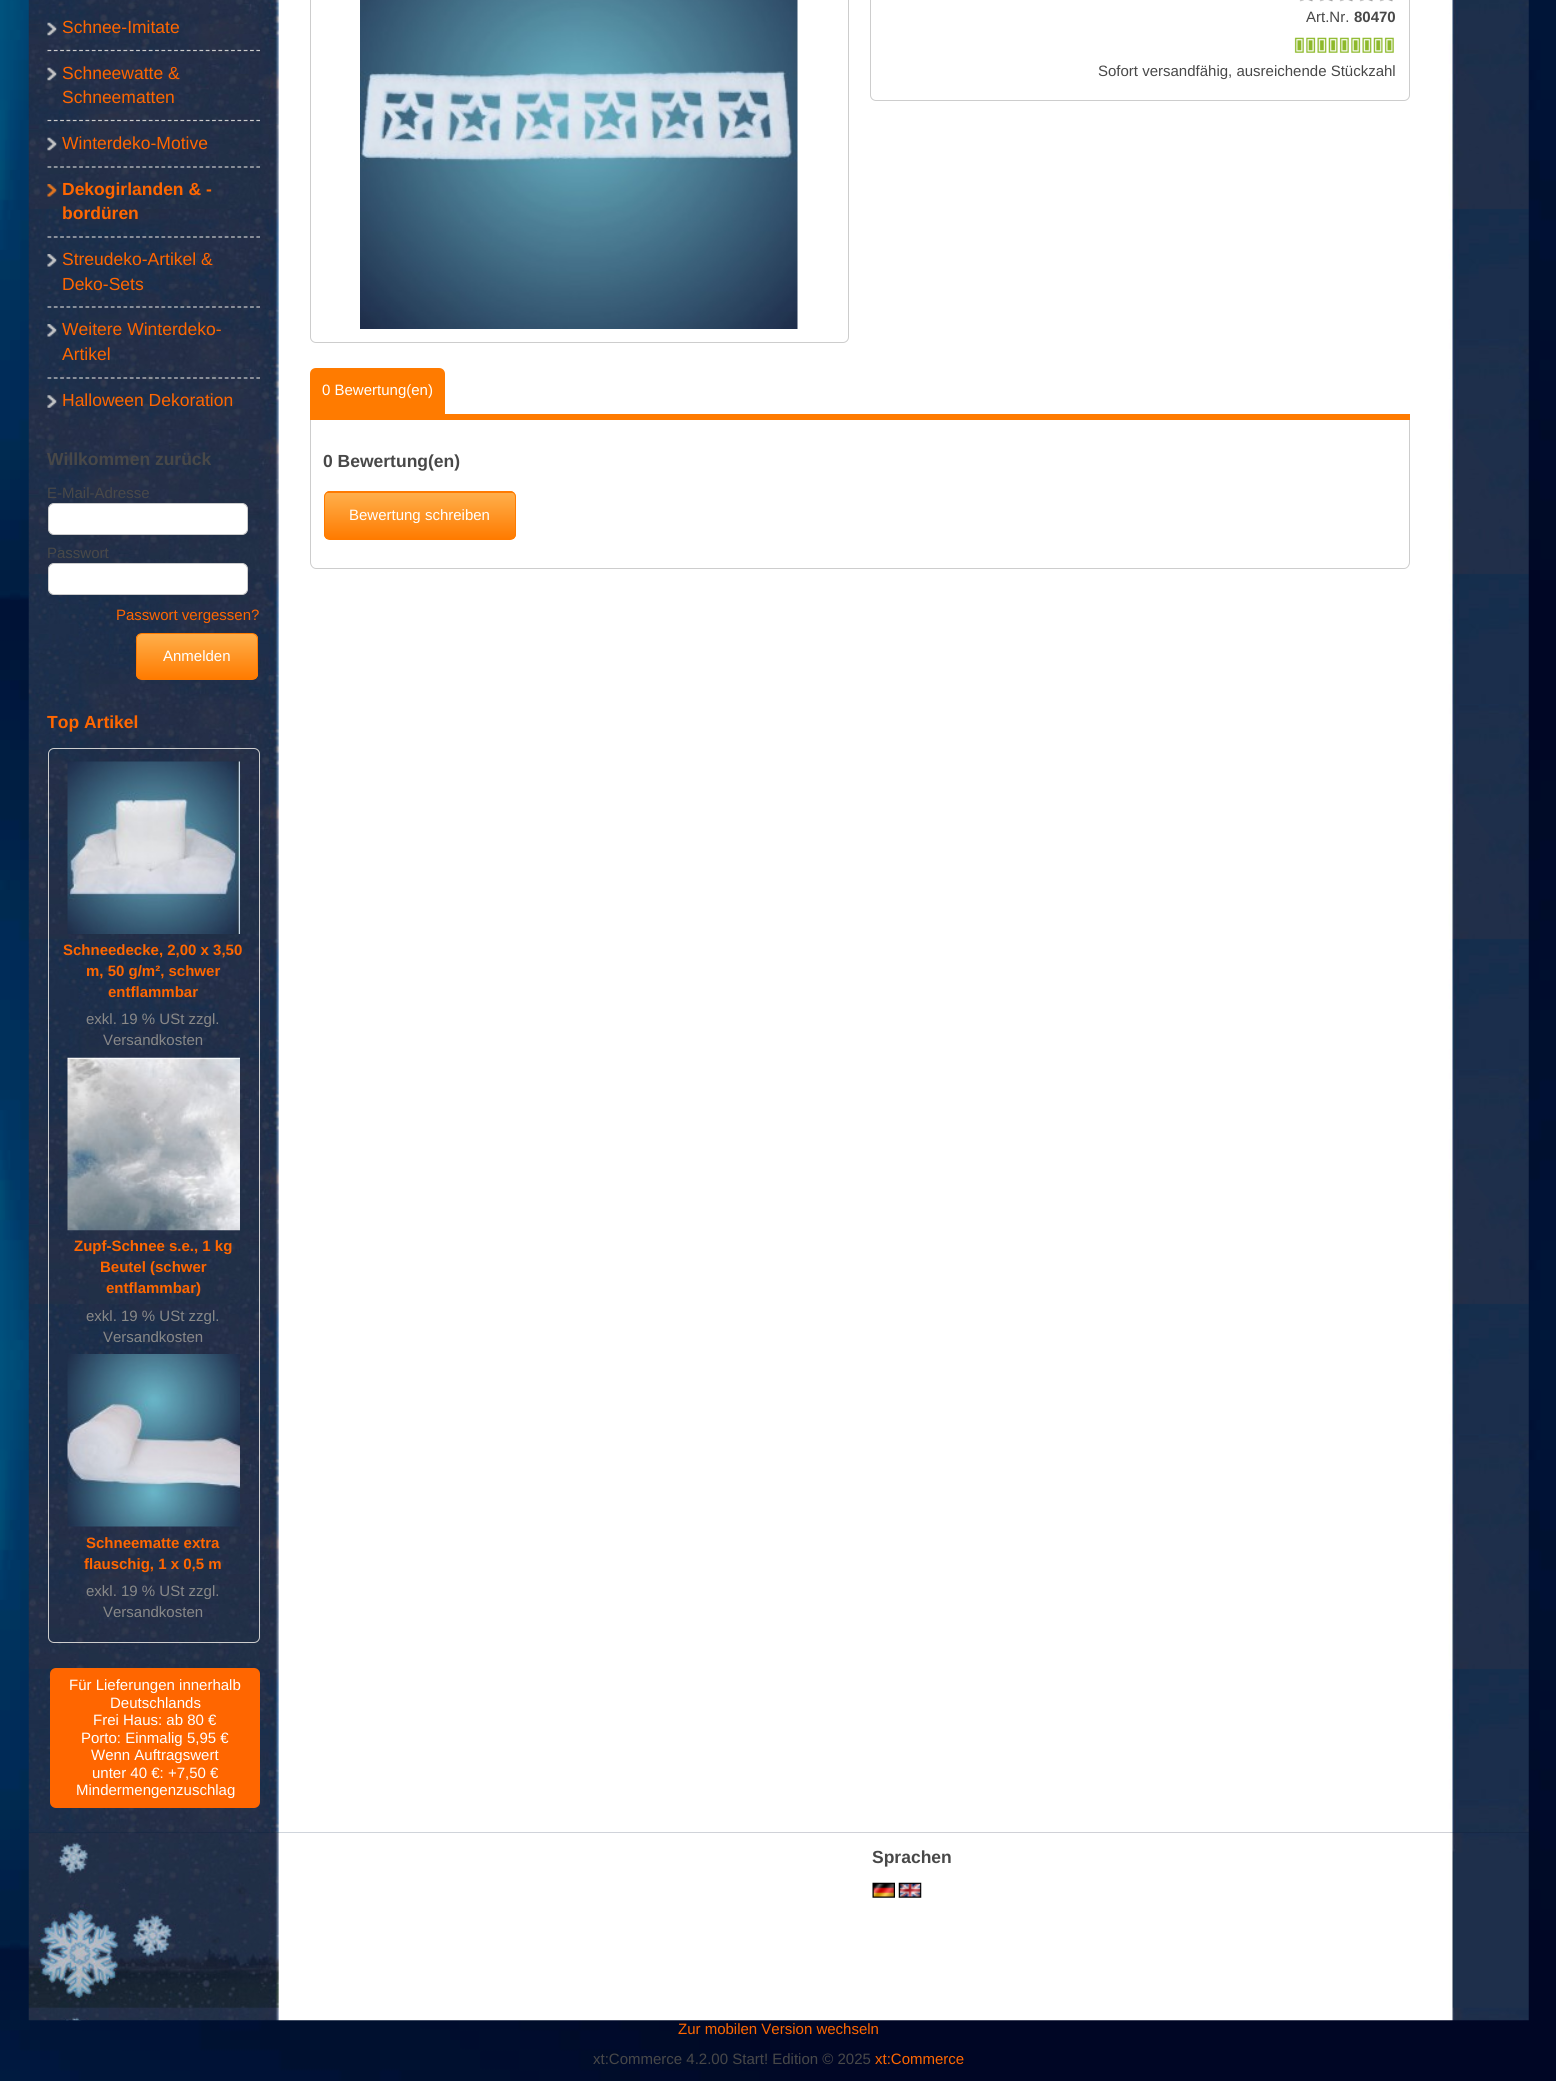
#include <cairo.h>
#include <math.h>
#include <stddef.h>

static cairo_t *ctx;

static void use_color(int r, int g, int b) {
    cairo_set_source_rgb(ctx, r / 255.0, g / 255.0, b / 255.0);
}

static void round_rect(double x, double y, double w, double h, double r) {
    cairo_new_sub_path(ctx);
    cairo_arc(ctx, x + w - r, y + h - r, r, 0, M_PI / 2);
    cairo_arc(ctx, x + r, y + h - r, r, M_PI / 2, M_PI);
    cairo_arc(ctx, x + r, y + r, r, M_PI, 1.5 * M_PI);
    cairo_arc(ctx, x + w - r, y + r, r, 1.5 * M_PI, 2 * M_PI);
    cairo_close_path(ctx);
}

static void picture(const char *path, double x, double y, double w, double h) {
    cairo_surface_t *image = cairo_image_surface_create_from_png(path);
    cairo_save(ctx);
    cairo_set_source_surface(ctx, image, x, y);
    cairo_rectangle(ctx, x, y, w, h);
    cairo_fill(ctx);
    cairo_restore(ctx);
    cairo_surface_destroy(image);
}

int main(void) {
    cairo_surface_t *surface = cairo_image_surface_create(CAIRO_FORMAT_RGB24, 1556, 2081);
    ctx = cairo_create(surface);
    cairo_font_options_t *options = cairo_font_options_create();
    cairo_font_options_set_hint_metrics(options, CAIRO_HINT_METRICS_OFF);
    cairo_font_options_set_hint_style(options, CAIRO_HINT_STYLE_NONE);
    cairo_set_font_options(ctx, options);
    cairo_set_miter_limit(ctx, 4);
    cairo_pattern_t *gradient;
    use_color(255, 255, 255);
    cairo_paint(ctx);
    picture("img1.png", 0, 0, 1556, 2081);
    picture("img2.png", 28, 0, 1501, 1833);
    picture("img3.png", 47, 22, 10, 14);
    cairo_new_path(ctx);
    cairo_move_to(ctx, 47.5, 50.5);
    cairo_line_to(ctx, 260, 50.5);
    use_color(205, 205, 205);
    cairo_set_line_width(ctx, 1.2);
    cairo_set_dash(ctx, (double[]){3.75, 2.58}, 2, 0);
    cairo_stroke(ctx);
    cairo_select_font_face(ctx, "Liberation Sans", CAIRO_FONT_SLANT_NORMAL, CAIRO_FONT_WEIGHT_NORMAL);
    cairo_set_font_size(ctx, 17.5);
    use_color(255, 102, 0);
    cairo_move_to(ctx, 62, 33);
    cairo_show_text(ctx, "Schnee-Imitate");
    picture("img4.png", 47, 67, 10, 14);
    cairo_new_path(ctx);
    cairo_move_to(ctx, 47.5, 120.5);
    cairo_line_to(ctx, 260, 120.5);
    use_color(205, 205, 205);
    cairo_stroke(ctx);
    use_color(255, 102, 0);
    cairo_move_to(ctx, 62, 79);
    cairo_show_text(ctx, "Schneewatte &");
    cairo_move_to(ctx, 62, 103);
    cairo_show_text(ctx, "Schneematten");
    picture("img5.png", 47, 137, 10, 14);
    cairo_new_path(ctx);
    cairo_move_to(ctx, 47.5, 167);
    cairo_line_to(ctx, 260, 167);
    use_color(205, 205, 205);
    cairo_stroke(ctx);
    use_color(255, 102, 0);
    cairo_move_to(ctx, 62, 149);
    cairo_show_text(ctx, "Winterdeko-Motive");
    picture("img6.png", 47, 184, 10, 13);
    cairo_new_path(ctx);
    cairo_move_to(ctx, 47.5, 237);
    cairo_line_to(ctx, 260, 237);
    use_color(205, 205, 205);
    cairo_stroke(ctx);
    cairo_select_font_face(ctx, "Liberation Sans", CAIRO_FONT_SLANT_NORMAL, CAIRO_FONT_WEIGHT_BOLD);
    use_color(255, 102, 0);
    cairo_move_to(ctx, 62, 195);
    cairo_show_text(ctx, "Dekogirlanden & -");
    cairo_move_to(ctx, 62, 219);
    cairo_show_text(ctx, "bordüren");
    picture("img7.png", 47, 254, 10, 13);
    cairo_new_path(ctx);
    cairo_move_to(ctx, 47.5, 307);
    cairo_line_to(ctx, 260, 307);
    use_color(205, 205, 205);
    cairo_stroke(ctx);
    cairo_select_font_face(ctx, "Liberation Sans", CAIRO_FONT_SLANT_NORMAL, CAIRO_FONT_WEIGHT_NORMAL);
    use_color(255, 102, 0);
    cairo_move_to(ctx, 62, 265);
    cairo_show_text(ctx, "Streudeko-Artikel &");
    cairo_move_to(ctx, 62, 290);
    cairo_show_text(ctx, "Deko-Sets");
    picture("img8.png", 47, 324, 10, 13);
    cairo_new_path(ctx);
    cairo_move_to(ctx, 47.5, 378);
    cairo_line_to(ctx, 260, 378);
    use_color(205, 205, 205);
    cairo_stroke(ctx);
    use_color(255, 102, 0);
    cairo_move_to(ctx, 62, 335);
    cairo_show_text(ctx, "Weitere Winterdeko-");
    cairo_move_to(ctx, 62, 360);
    cairo_show_text(ctx, "Artikel");
    picture("img9.png", 47, 395, 10, 13);
    cairo_move_to(ctx, 62, 406);
    cairo_show_text(ctx, "Halloween Dekoration");
    cairo_select_font_face(ctx, "Liberation Sans", CAIRO_FONT_SLANT_NORMAL, CAIRO_FONT_WEIGHT_BOLD);
    use_color(72, 72, 72);
    cairo_move_to(ctx, 47, 465);
    cairo_show_text(ctx, "Willkommen zurück");
    cairo_select_font_face(ctx, "Liberation Sans", CAIRO_FONT_SLANT_NORMAL, CAIRO_FONT_WEIGHT_NORMAL);
    cairo_set_font_size(ctx, 15);
    cairo_move_to(ctx, 47, 498);
    cairo_show_text(ctx, "E-Mail-Adresse");
    use_color(255, 255, 255);
    round_rect(48.5, 503.5, 199, 31, 5.5);
    cairo_fill_preserve(ctx);
    use_color(205, 205, 205);
    cairo_set_line_width(ctx, 1);
    cairo_set_dash(ctx, NULL, 0, 0);
    cairo_stroke(ctx);
    use_color(72, 72, 72);
    cairo_move_to(ctx, 47, 558);
    cairo_show_text(ctx, "Passwort");
    use_color(255, 255, 255);
    round_rect(48.5, 563.5, 199, 31, 5.5);
    cairo_fill_preserve(ctx);
    use_color(205, 205, 205);
    cairo_stroke(ctx);
    use_color(255, 102, 0);
    cairo_move_to(ctx, 116, 620);
    cairo_show_text(ctx, "Passwort vergessen?");
    cairo_save(ctx);
    round_rect(136, 633, 122, 47, 6);
    cairo_clip(ctx);
    gradient = cairo_pattern_create_linear(197, 634, 197, 679);
    cairo_pattern_add_color_stop_rgba(gradient, 0, 1, 0.686, 0.294, 1);
    cairo_pattern_add_color_stop_rgba(gradient, 1, 1, 0.482, 0, 1);
    cairo_set_source(ctx, gradient);
    cairo_pattern_destroy(gradient);
    cairo_rectangle(ctx, 136, 634, 122, 45);
    cairo_fill(ctx);
    cairo_restore(ctx);
    round_rect(136.5, 633.5, 121, 46, 5.5);
    use_color(255, 123, 0);
    cairo_stroke(ctx);
    use_color(255, 255, 255);
    cairo_move_to(ctx, 163, 661);
    cairo_show_text(ctx, "Anmelden");
    cairo_select_font_face(ctx, "Liberation Sans", CAIRO_FONT_SLANT_NORMAL, CAIRO_FONT_WEIGHT_BOLD);
    cairo_set_font_size(ctx, 17.5);
    use_color(255, 102, 0);
    cairo_move_to(ctx, 47, 728);
    cairo_show_text(ctx, "Top Artikel");
    round_rect(48.5, 748.5, 211, 894, 5.5);
    use_color(205, 205, 205);
    cairo_stroke(ctx);
    picture("img10.png", 67, 761, 173, 173);
    cairo_set_font_size(ctx, 15);
    use_color(255, 102, 0);
    cairo_move_to(ctx, 63, 955);
    cairo_show_text(ctx, "Schneedecke, 2,00 x 3,50");
    cairo_move_to(ctx, 86, 976);
    cairo_show_text(ctx, "m, 50 g/m², schwer");
    cairo_move_to(ctx, 108, 997);
    cairo_show_text(ctx, "entflammbar");
    cairo_select_font_face(ctx, "Liberation Sans", CAIRO_FONT_SLANT_NORMAL, CAIRO_FONT_WEIGHT_NORMAL);
    use_color(136, 136, 136);
    cairo_move_to(ctx, 86, 1024);
    cairo_show_text(ctx, "exkl. 19 % USt zzgl.");
    cairo_move_to(ctx, 103, 1045);
    cairo_show_text(ctx, "Versandkosten");
    picture("img11.png", 67, 1057, 173, 174);
    cairo_select_font_face(ctx, "Liberation Sans", CAIRO_FONT_SLANT_NORMAL, CAIRO_FONT_WEIGHT_BOLD);
    use_color(255, 102, 0);
    cairo_move_to(ctx, 74, 1251);
    cairo_show_text(ctx, "Zupf-Schnee s.e., 1 kg");
    cairo_move_to(ctx, 100, 1272);
    cairo_show_text(ctx, "Beutel (schwer");
    cairo_move_to(ctx, 106, 1293);
    cairo_show_text(ctx, "entflammbar)");
    cairo_select_font_face(ctx, "Liberation Sans", CAIRO_FONT_SLANT_NORMAL, CAIRO_FONT_WEIGHT_NORMAL);
    use_color(136, 136, 136);
    cairo_move_to(ctx, 86, 1321);
    cairo_show_text(ctx, "exkl. 19 % USt zzgl.");
    cairo_move_to(ctx, 103, 1342);
    cairo_show_text(ctx, "Versandkosten");
    picture("img12.png", 67, 1354, 173, 173);
    cairo_select_font_face(ctx, "Liberation Sans", CAIRO_FONT_SLANT_NORMAL, CAIRO_FONT_WEIGHT_BOLD);
    use_color(255, 102, 0);
    cairo_move_to(ctx, 86, 1548);
    cairo_show_text(ctx, "Schneematte extra");
    cairo_move_to(ctx, 84, 1569);
    cairo_show_text(ctx, "flauschig, 1 x 0,5 m");
    cairo_select_font_face(ctx, "Liberation Sans", CAIRO_FONT_SLANT_NORMAL, CAIRO_FONT_WEIGHT_NORMAL);
    use_color(136, 136, 136);
    cairo_move_to(ctx, 86, 1596);
    cairo_show_text(ctx, "exkl. 19 % USt zzgl.");
    cairo_move_to(ctx, 103, 1617);
    cairo_show_text(ctx, "Versandkosten");
    use_color(255, 102, 0);
    round_rect(50, 1668, 210, 140, 6);
    cairo_fill(ctx);
    use_color(255, 255, 255);
    cairo_move_to(ctx, 69, 1690);
    cairo_show_text(ctx, "Für Lieferungen innerhalb");
    cairo_move_to(ctx, 110, 1708);
    cairo_show_text(ctx, "Deutschlands");
    cairo_move_to(ctx, 93, 1725);
    cairo_show_text(ctx, "Frei Haus: ab 80 €");
    cairo_move_to(ctx, 81, 1743);
    cairo_show_text(ctx, "Porto: Einmalig 5,95 €");
    cairo_move_to(ctx, 91, 1760);
    cairo_show_text(ctx, "Wenn Auftragswert");
    cairo_move_to(ctx, 92, 1778);
    cairo_show_text(ctx, "unter 40 €: +7,50 €");
    cairo_move_to(ctx, 76, 1795);
    cairo_show_text(ctx, "Mindermengenzuschlag");
    round_rect(310.5, -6.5, 538, 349, 5.5);
    use_color(205, 205, 205);
    cairo_stroke(ctx);
    picture("img13.png", 360, 0, 438, 329);
    round_rect(870.5, -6.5, 539, 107, 5.5);
    cairo_stroke(ctx);
    picture("img14.png", 1299, 0, 94, 2);
    use_color(72, 72, 72);
    cairo_move_to(ctx, 1306, 22);
    cairo_show_text(ctx, "Art.Nr.");
    cairo_select_font_face(ctx, "Liberation Sans", CAIRO_FONT_SLANT_NORMAL, CAIRO_FONT_WEIGHT_BOLD);
    cairo_move_to(ctx, 1354, 22);
    cairo_show_text(ctx, "80470");
    picture("img15.png", 1294, 37, 100, 16);
    cairo_select_font_face(ctx, "Liberation Sans", CAIRO_FONT_SLANT_NORMAL, CAIRO_FONT_WEIGHT_NORMAL);
    cairo_move_to(ctx, 1098, 76);
    cairo_show_text(ctx, "Sofort versandfähig, ausreichende Stückzahl");
    use_color(255, 123, 0);
    cairo_rectangle(ctx, 310, 414, 1100, 6);
    cairo_fill(ctx);
    cairo_new_path(ctx);
    cairo_move_to(ctx, 316, 368);
    cairo_line_to(ctx, 439, 368);
    cairo_curve_to(ctx, 442.5, 368, 445, 370.5, 445, 374);
    cairo_line_to(ctx, 445, 414);
    cairo_line_to(ctx, 310, 414);
    cairo_line_to(ctx, 310, 374);
    cairo_curve_to(ctx, 310, 370.5, 312.5, 368, 316, 368);
    cairo_close_path(ctx);
    cairo_fill(ctx);
    use_color(255, 255, 255);
    cairo_move_to(ctx, 322, 395);
    cairo_show_text(ctx, "0 Bewertung(en)");
    use_color(205, 205, 205);
    cairo_set_fill_rule(ctx, CAIRO_FILL_RULE_EVEN_ODD);
    cairo_new_path(ctx);
    cairo_move_to(ctx, 310, 420);
    cairo_line_to(ctx, 1410, 420);
    cairo_line_to(ctx, 1410, 562);
    cairo_curve_to(ctx, 1410, 566, 1407, 569, 1404, 569);
    cairo_line_to(ctx, 316, 569);
    cairo_curve_to(ctx, 313, 569, 310, 566, 310, 562);
    cairo_close_path(ctx);
    cairo_move_to(ctx, 311, 420);
    cairo_line_to(ctx, 1409, 420);
    cairo_line_to(ctx, 1409, 562);
    cairo_curve_to(ctx, 1409, 565, 1407, 568, 1404, 568);
    cairo_line_to(ctx, 316, 568);
    cairo_curve_to(ctx, 313, 568, 311, 565, 311, 562);
    cairo_close_path(ctx);
    cairo_fill(ctx);
    cairo_select_font_face(ctx, "Liberation Sans", CAIRO_FONT_SLANT_NORMAL, CAIRO_FONT_WEIGHT_BOLD);
    cairo_set_font_size(ctx, 17.5);
    use_color(72, 72, 72);
    cairo_move_to(ctx, 323, 467);
    cairo_show_text(ctx, "0 Bewertung(en)");
    cairo_save(ctx);
    cairo_set_fill_rule(ctx, CAIRO_FILL_RULE_WINDING);
    round_rect(324, 491, 192, 49, 6);
    cairo_clip(ctx);
    gradient = cairo_pattern_create_linear(420, 446, 420, 493);
    cairo_pattern_add_color_stop_rgba(gradient, 0, 1, 0.686, 0.294, 1);
    cairo_pattern_add_color_stop_rgba(gradient, 1, 1, 0.482, 0, 1);
    cairo_set_source(ctx, gradient);
    cairo_pattern_destroy(gradient);
    cairo_rectangle(ctx, 324, 491, 192, 2);
    cairo_fill(ctx);
    gradient = cairo_pattern_create_linear(420, 493, 420, 539);
    cairo_pattern_add_color_stop_rgba(gradient, 0, 1, 0.686, 0.294, 1);
    cairo_pattern_add_color_stop_rgba(gradient, 1, 1, 0.482, 0, 1);
    cairo_set_source(ctx, gradient);
    cairo_pattern_destroy(gradient);
    cairo_rectangle(ctx, 324, 493, 192, 46);
    cairo_fill(ctx);
    cairo_restore(ctx);
    round_rect(324.5, 491.5, 191, 48, 5.5);
    use_color(255, 123, 0);
    cairo_stroke(ctx);
    cairo_select_font_face(ctx, "Liberation Sans", CAIRO_FONT_SLANT_NORMAL, CAIRO_FONT_WEIGHT_NORMAL);
    cairo_set_font_size(ctx, 15);
    use_color(255, 255, 255);
    cairo_move_to(ctx, 349, 520);
    cairo_show_text(ctx, "Bewertung schreiben");
    picture("img16.png", 28, 1832, 1501, 189);
    cairo_select_font_face(ctx, "Liberation Sans", CAIRO_FONT_SLANT_NORMAL, CAIRO_FONT_WEIGHT_BOLD);
    cairo_set_font_size(ctx, 17.5);
    use_color(72, 72, 72);
    cairo_move_to(ctx, 872, 1863);
    cairo_show_text(ctx, "Sprachen");
    picture("img17.png", 872, 1882, 23, 16);
    picture("img18.png", 898, 1882, 24, 16);
    cairo_select_font_face(ctx, "Liberation Sans", CAIRO_FONT_SLANT_NORMAL, CAIRO_FONT_WEIGHT_NORMAL);
    cairo_set_font_size(ctx, 15);
    use_color(255, 102, 0);
    cairo_move_to(ctx, 678, 2034);
    cairo_show_text(ctx, "Zur mobilen Version wechseln");
    use_color(72, 72, 72);
    cairo_move_to(ctx, 593, 2064);
    cairo_show_text(ctx, "xt:Commerce 4.2.00 Start! Edition © 2025");
    use_color(255, 102, 0);
    cairo_move_to(ctx, 875, 2064);
    cairo_show_text(ctx, "xt:Commerce");
    cairo_surface_write_to_png(surface, "result.png");
    cairo_font_options_destroy(options);
    cairo_destroy(ctx);
    cairo_surface_destroy(surface);
    return 0;
}
